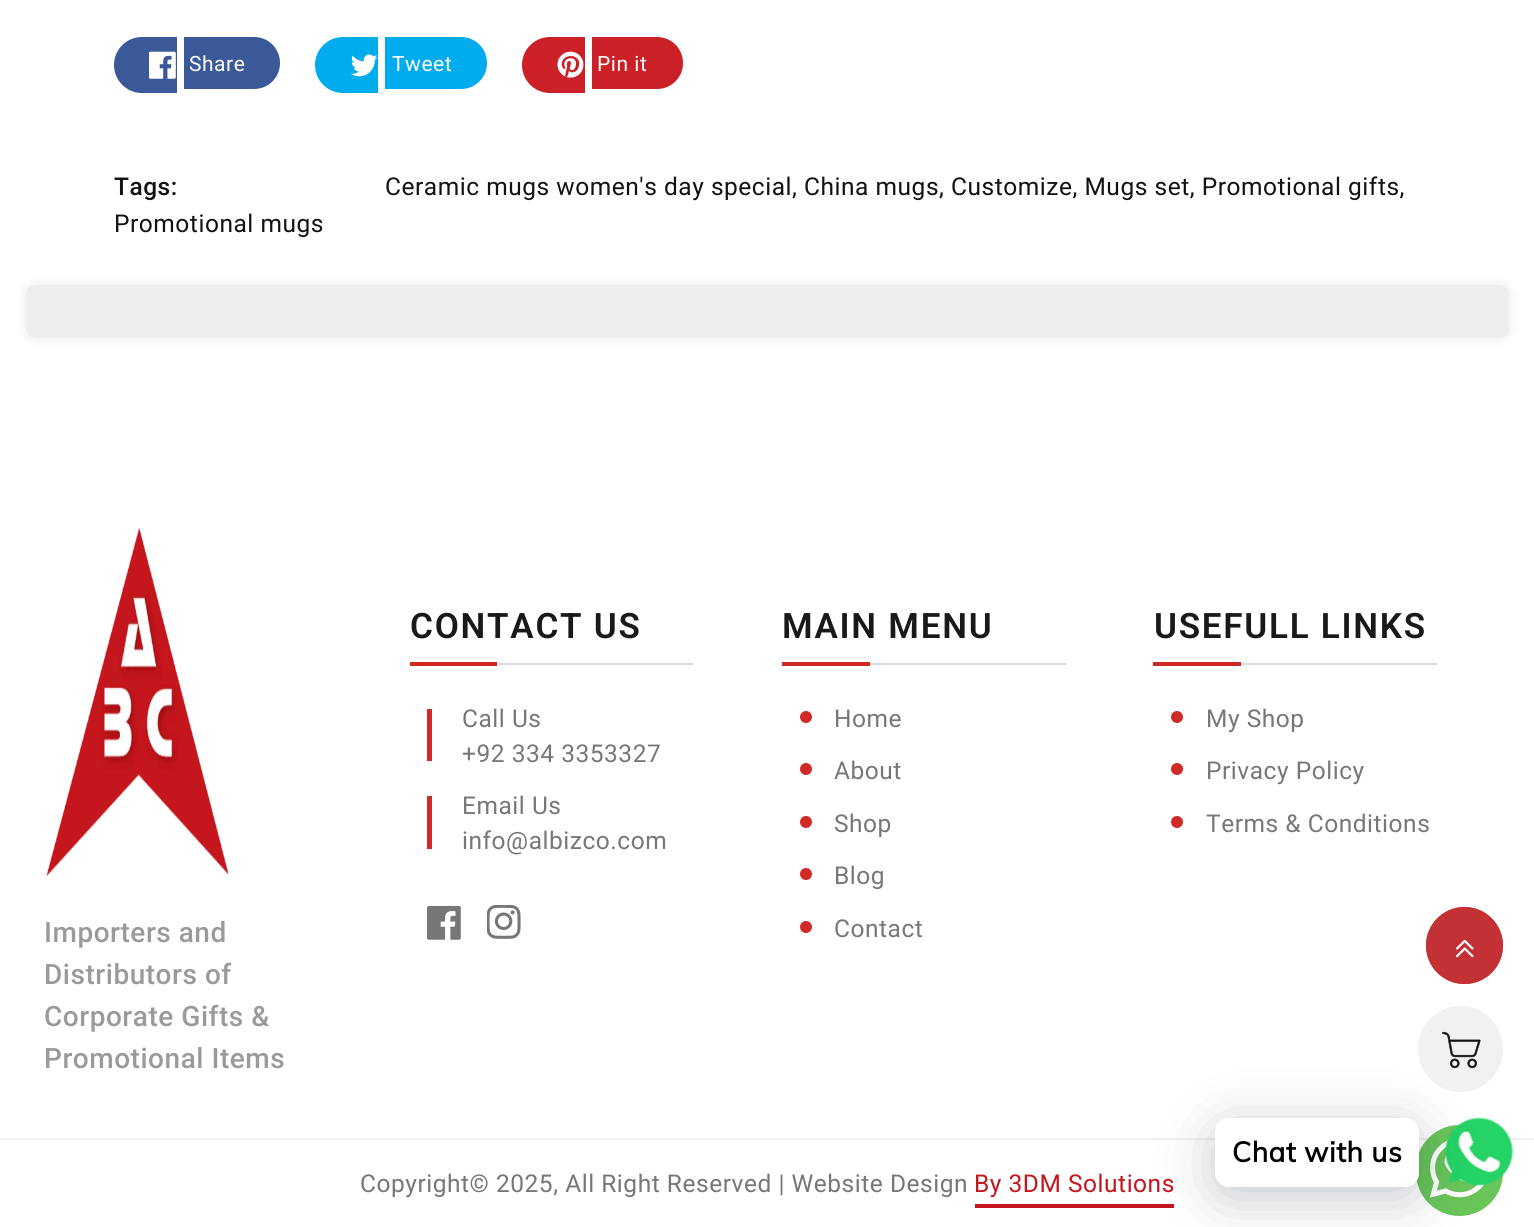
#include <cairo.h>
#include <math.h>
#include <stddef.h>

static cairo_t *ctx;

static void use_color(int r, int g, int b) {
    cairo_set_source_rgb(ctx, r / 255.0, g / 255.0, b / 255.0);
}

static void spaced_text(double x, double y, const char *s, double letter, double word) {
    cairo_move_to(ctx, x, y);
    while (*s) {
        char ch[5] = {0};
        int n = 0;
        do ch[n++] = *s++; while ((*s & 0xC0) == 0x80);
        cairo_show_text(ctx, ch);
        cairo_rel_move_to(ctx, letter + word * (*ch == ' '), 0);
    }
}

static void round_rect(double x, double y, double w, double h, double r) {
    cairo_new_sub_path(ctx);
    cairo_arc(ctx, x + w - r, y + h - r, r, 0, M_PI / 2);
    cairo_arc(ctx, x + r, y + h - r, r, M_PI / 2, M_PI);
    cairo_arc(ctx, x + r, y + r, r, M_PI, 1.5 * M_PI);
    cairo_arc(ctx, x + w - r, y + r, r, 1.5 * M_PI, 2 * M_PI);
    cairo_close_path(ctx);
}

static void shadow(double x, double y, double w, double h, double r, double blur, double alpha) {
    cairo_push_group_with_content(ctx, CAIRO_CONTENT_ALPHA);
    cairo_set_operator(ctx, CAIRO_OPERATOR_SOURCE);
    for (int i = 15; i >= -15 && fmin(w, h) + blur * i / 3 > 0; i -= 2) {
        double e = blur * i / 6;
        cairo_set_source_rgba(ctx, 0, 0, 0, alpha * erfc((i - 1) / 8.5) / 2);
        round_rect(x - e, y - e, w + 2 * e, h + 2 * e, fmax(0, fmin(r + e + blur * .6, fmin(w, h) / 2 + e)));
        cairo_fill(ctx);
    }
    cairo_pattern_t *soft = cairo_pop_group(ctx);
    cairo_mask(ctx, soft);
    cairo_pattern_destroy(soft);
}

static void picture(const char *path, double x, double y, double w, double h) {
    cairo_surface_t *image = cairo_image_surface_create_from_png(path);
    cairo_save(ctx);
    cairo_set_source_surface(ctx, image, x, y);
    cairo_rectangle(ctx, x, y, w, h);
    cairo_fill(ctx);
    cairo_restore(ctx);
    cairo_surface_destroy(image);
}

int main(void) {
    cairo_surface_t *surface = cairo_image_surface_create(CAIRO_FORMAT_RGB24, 1534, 1227);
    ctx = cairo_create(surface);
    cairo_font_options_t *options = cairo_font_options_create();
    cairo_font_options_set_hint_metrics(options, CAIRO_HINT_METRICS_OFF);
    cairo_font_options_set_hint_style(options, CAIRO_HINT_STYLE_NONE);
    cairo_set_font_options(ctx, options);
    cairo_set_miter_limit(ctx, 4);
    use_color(255, 255, 255);
    cairo_paint(ctx);
    use_color(59, 89, 152);
    cairo_new_path(ctx);
    cairo_move_to(ctx, 142, 37);
    cairo_line_to(ctx, 177, 37);
    cairo_line_to(ctx, 177, 93);
    cairo_line_to(ctx, 142, 93);
    cairo_curve_to(ctx, 126.5, 93, 114, 80.5, 114, 65);
    cairo_curve_to(ctx, 114, 49.5, 126.5, 37, 142, 37);
    cairo_close_path(ctx);
    cairo_fill(ctx);
    picture("img1.png", 149, 51, 27, 28);
    cairo_new_path(ctx);
    cairo_move_to(ctx, 189, 37);
    cairo_line_to(ctx, 254, 37);
    cairo_curve_to(ctx, 268.5, 37, 280, 48.5, 280, 63);
    cairo_curve_to(ctx, 280, 77.5, 268.5, 89, 254, 89);
    cairo_line_to(ctx, 189, 89);
    cairo_close_path(ctx);
    cairo_fill(ctx);
    cairo_select_font_face(ctx, "Roboto", CAIRO_FONT_SLANT_NORMAL, CAIRO_FONT_WEIGHT_NORMAL);
    cairo_set_font_size(ctx, 21);
    use_color(255, 255, 255);
    spaced_text(189, 71, "Share", 0.53, 0);
    use_color(59, 89, 152);
    cairo_rectangle(ctx, 184, 37, 5, 52);
    cairo_fill(ctx);
    use_color(0, 172, 237);
    cairo_new_path(ctx);
    cairo_move_to(ctx, 343, 37);
    cairo_line_to(ctx, 378, 37);
    cairo_line_to(ctx, 378, 93);
    cairo_line_to(ctx, 343, 93);
    cairo_curve_to(ctx, 327.5, 93, 315, 80.5, 315, 65);
    cairo_curve_to(ctx, 315, 49.5, 327.5, 37, 343, 37);
    cairo_close_path(ctx);
    cairo_fill(ctx);
    picture("img2.png", 351, 54, 27, 23);
    cairo_new_path(ctx);
    cairo_move_to(ctx, 392, 37);
    cairo_line_to(ctx, 461, 37);
    cairo_curve_to(ctx, 475.5, 37, 487, 48.5, 487, 63);
    cairo_curve_to(ctx, 487, 77.5, 475.5, 89, 461, 89);
    cairo_line_to(ctx, 392, 89);
    cairo_close_path(ctx);
    cairo_fill(ctx);
    use_color(255, 255, 255);
    spaced_text(392, 71, "Tweet", 0.53, 0);
    use_color(0, 172, 237);
    cairo_rectangle(ctx, 385, 37, 7, 52);
    cairo_fill(ctx);
    use_color(203, 32, 39);
    cairo_new_path(ctx);
    cairo_move_to(ctx, 550, 37);
    cairo_line_to(ctx, 585, 37);
    cairo_line_to(ctx, 585, 93);
    cairo_line_to(ctx, 550, 93);
    cairo_curve_to(ctx, 534.5, 93, 522, 80.5, 522, 65);
    cairo_curve_to(ctx, 522, 49.5, 534.5, 37, 550, 37);
    cairo_close_path(ctx);
    cairo_fill(ctx);
    picture("img3.png", 557, 51, 27, 27);
    cairo_new_path(ctx);
    cairo_move_to(ctx, 597, 37);
    cairo_line_to(ctx, 657, 37);
    cairo_curve_to(ctx, 671.5, 37, 683, 48.5, 683, 63);
    cairo_curve_to(ctx, 683, 77.5, 671.5, 89, 657, 89);
    cairo_line_to(ctx, 597, 89);
    cairo_close_path(ctx);
    cairo_fill(ctx);
    use_color(255, 255, 255);
    spaced_text(597, 71, "Pin it", 0.53, 0);
    use_color(203, 32, 39);
    cairo_rectangle(ctx, 592, 37, 5, 52);
    cairo_fill(ctx);
    cairo_select_font_face(ctx, "Roboto Medium", CAIRO_FONT_SLANT_NORMAL, CAIRO_FONT_WEIGHT_NORMAL);
    cairo_set_font_size(ctx, 24.5);
    use_color(18, 18, 18);
    spaced_text(114, 195, "Tags:", 0.53, 0);
    cairo_select_font_face(ctx, "Roboto", CAIRO_FONT_SLANT_NORMAL, CAIRO_FONT_WEIGHT_NORMAL);
    spaced_text(385, 195, "Ceramic mugs women's day special, China mugs, Customize, Mugs set, Promotional gifts,", 0.53, 0);
    spaced_text(114, 232, "Promotional mugs", 0.53, 0);
    use_color(18, 18, 18);
    shadow(26, 285, 1483, 53, 9, 5, 0.1);
    use_color(238, 238, 239);
    round_rect(26, 285, 1483, 53, 9);
    cairo_fill(ctx);
    use_color(217, 217, 217);
    cairo_rectangle(ctx, 497, 663, 196, 2);
    cairo_fill(ctx);
    cairo_select_font_face(ctx, "Roboto SemiBold", CAIRO_FONT_SLANT_NORMAL, CAIRO_FONT_WEIGHT_NORMAL);
    cairo_set_font_size(ctx, 35);
    use_color(25, 25, 25);
    spaced_text(410, 638, "CONTACT US", 1.75, 0);
    use_color(208, 42, 39);
    cairo_rectangle(ctx, 410, 662, 87, 4);
    cairo_fill(ctx);
    cairo_rectangle(ctx, 427, 709, 5, 52);
    cairo_fill(ctx);
    cairo_select_font_face(ctx, "Roboto", CAIRO_FONT_SLANT_NORMAL, CAIRO_FONT_WEIGHT_NORMAL);
    cairo_set_font_size(ctx, 24.5);
    use_color(119, 119, 119);
    spaced_text(462, 727, "Call Us", 0.53, 0);
    spaced_text(462, 762, "+92 334 3353327", 0.53, 0);
    use_color(208, 42, 39);
    cairo_rectangle(ctx, 427, 796, 5, 53);
    cairo_fill(ctx);
    use_color(119, 119, 119);
    spaced_text(462, 814, "Email Us", 0.53, 0);
    spaced_text(462, 849, "info@albizco.com", 0.53, 0);
    picture("img4.png", 427, 905, 34, 35);
    picture("img5.png", 487, 905, 34, 34);
    use_color(217, 217, 217);
    cairo_rectangle(ctx, 870, 663, 196, 2);
    cairo_fill(ctx);
    cairo_select_font_face(ctx, "Roboto SemiBold", CAIRO_FONT_SLANT_NORMAL, CAIRO_FONT_WEIGHT_NORMAL);
    cairo_set_font_size(ctx, 35);
    use_color(25, 25, 25);
    spaced_text(782, 638, "MAIN MENU", 1.75, 0);
    use_color(208, 42, 39);
    cairo_rectangle(ctx, 782, 662, 88, 4);
    cairo_fill(ctx);
    cairo_arc(ctx, 806, 717, 6, 0, 2 * M_PI);
    cairo_fill(ctx);
    cairo_select_font_face(ctx, "Roboto", CAIRO_FONT_SLANT_NORMAL, CAIRO_FONT_WEIGHT_NORMAL);
    cairo_set_font_size(ctx, 24.5);
    use_color(119, 119, 119);
    spaced_text(834, 727, "Home", 0.53, 0);
    use_color(208, 42, 39);
    cairo_new_path(ctx);
    cairo_arc(ctx, 806, 769, 6, 0, 2 * M_PI);
    cairo_fill(ctx);
    use_color(119, 119, 119);
    spaced_text(834, 779, "About", 0.53, 0);
    use_color(208, 42, 39);
    cairo_new_path(ctx);
    cairo_arc(ctx, 806, 822, 6, 0, 2 * M_PI);
    cairo_fill(ctx);
    use_color(119, 119, 119);
    spaced_text(834, 832, "Shop", 0.53, 0);
    use_color(208, 42, 39);
    cairo_new_path(ctx);
    cairo_arc(ctx, 806, 874, 6, 0, 2 * M_PI);
    cairo_fill(ctx);
    use_color(119, 119, 119);
    spaced_text(834, 884, "Blog", 0.53, 0);
    use_color(208, 42, 39);
    cairo_new_path(ctx);
    cairo_arc(ctx, 806, 927, 6, 0, 2 * M_PI);
    cairo_fill(ctx);
    use_color(119, 119, 119);
    spaced_text(834, 937, "Contact", 0.53, 0);
    use_color(217, 217, 217);
    cairo_rectangle(ctx, 1241, 663, 196, 2);
    cairo_fill(ctx);
    cairo_select_font_face(ctx, "Roboto SemiBold", CAIRO_FONT_SLANT_NORMAL, CAIRO_FONT_WEIGHT_NORMAL);
    cairo_set_font_size(ctx, 35);
    use_color(25, 25, 25);
    spaced_text(1154, 638, "USEFULL LINKS", 1.75, 0);
    use_color(208, 42, 39);
    cairo_rectangle(ctx, 1153, 662, 88, 4);
    cairo_fill(ctx);
    cairo_arc(ctx, 1177, 717, 6, 0, 2 * M_PI);
    cairo_fill(ctx);
    cairo_select_font_face(ctx, "Roboto", CAIRO_FONT_SLANT_NORMAL, CAIRO_FONT_WEIGHT_NORMAL);
    cairo_set_font_size(ctx, 24.5);
    use_color(119, 119, 119);
    spaced_text(1206, 727, "My Shop", 0.53, 0);
    use_color(208, 42, 39);
    cairo_new_path(ctx);
    cairo_arc(ctx, 1177, 769, 6, 0, 2 * M_PI);
    cairo_fill(ctx);
    use_color(119, 119, 119);
    spaced_text(1206, 779, "Privacy Policy", 0.53, 0);
    use_color(208, 42, 39);
    cairo_new_path(ctx);
    cairo_arc(ctx, 1177, 822, 6, 0, 2 * M_PI);
    cairo_fill(ctx);
    use_color(119, 119, 119);
    spaced_text(1206, 832, "Terms & Conditions", 0.53, 0);
    picture("img6.png", 46, 528, 183, 348);
    cairo_select_font_face(ctx, "Roboto Medium", CAIRO_FONT_SLANT_NORMAL, CAIRO_FONT_WEIGHT_NORMAL);
    cairo_set_font_size(ctx, 28);
    use_color(154, 154, 154);
    spaced_text(44, 942, "Importers and", 0.53, 0);
    spaced_text(44, 984, "Distributors of", 0.53, 0);
    spaced_text(44, 1026, "Corporate Gifts &", 0.53, 0);
    spaced_text(44, 1068, "Promotional Items", 0.53, 0);
    use_color(241, 241, 241);
    cairo_rectangle(ctx, 0, 1138, 1534, 2);
    cairo_fill(ctx);
    use_color(105, 196, 89);
    round_rect(1416, 1125, 87, 91, 43.5);
    cairo_fill(ctx);
    picture("img7.png", 1429, 1139, 56, 59);
    use_color(195, 49, 53);
    cairo_arc(ctx, 1464.5, 945.5, 38.5, 0, 2 * M_PI);
    cairo_fill(ctx);
    picture("img8.png", 1456, 939, 18, 19);
    cairo_arc(ctx, 1464.5, 945.5, 37.5, 0, 2 * M_PI);
    cairo_stroke(ctx);
    cairo_select_font_face(ctx, "Roboto", CAIRO_FONT_SLANT_NORMAL, CAIRO_FONT_WEIGHT_NORMAL);
    cairo_set_font_size(ctx, 24.5);
    use_color(119, 119, 119);
    spaced_text(360, 1192, "Copyright© 2025, All Right Reserved | Website Design", 0.53, 0);
    use_color(197, 21, 29);
    spaced_text(974, 1192, "By 3DM Solutions", 0.53, 0);
    cairo_rectangle(ctx, 975, 1204, 199, 4);
    cairo_fill(ctx);
    use_color(241, 241, 241);
    round_rect(1418, 1006, 85, 86, 42.5);
    cairo_fill(ctx);
    picture("img9.png", 1442, 1031, 39, 38);
    picture("img10.png", 1444, 1117, 69, 69);
    use_color(0, 18, 46);
    shadow(1215, 1129, 204, 68, 14, 28, 0.24);
    use_color(255, 255, 255);
    round_rect(1215, 1118, 204, 69, 14);
    cairo_fill(ctx);
    cairo_select_font_face(ctx, "Muli", CAIRO_FONT_SLANT_NORMAL, CAIRO_FONT_WEIGHT_BOLD);
    cairo_set_font_size(ctx, 28);
    use_color(0, 0, 0);
    spaced_text(1232, 1162, "Chat with us", 0.53, 0);
    cairo_surface_write_to_png(surface, "result.png");
    cairo_font_options_destroy(options);
    cairo_destroy(ctx);
    cairo_surface_destroy(surface);
    return 0;
}
